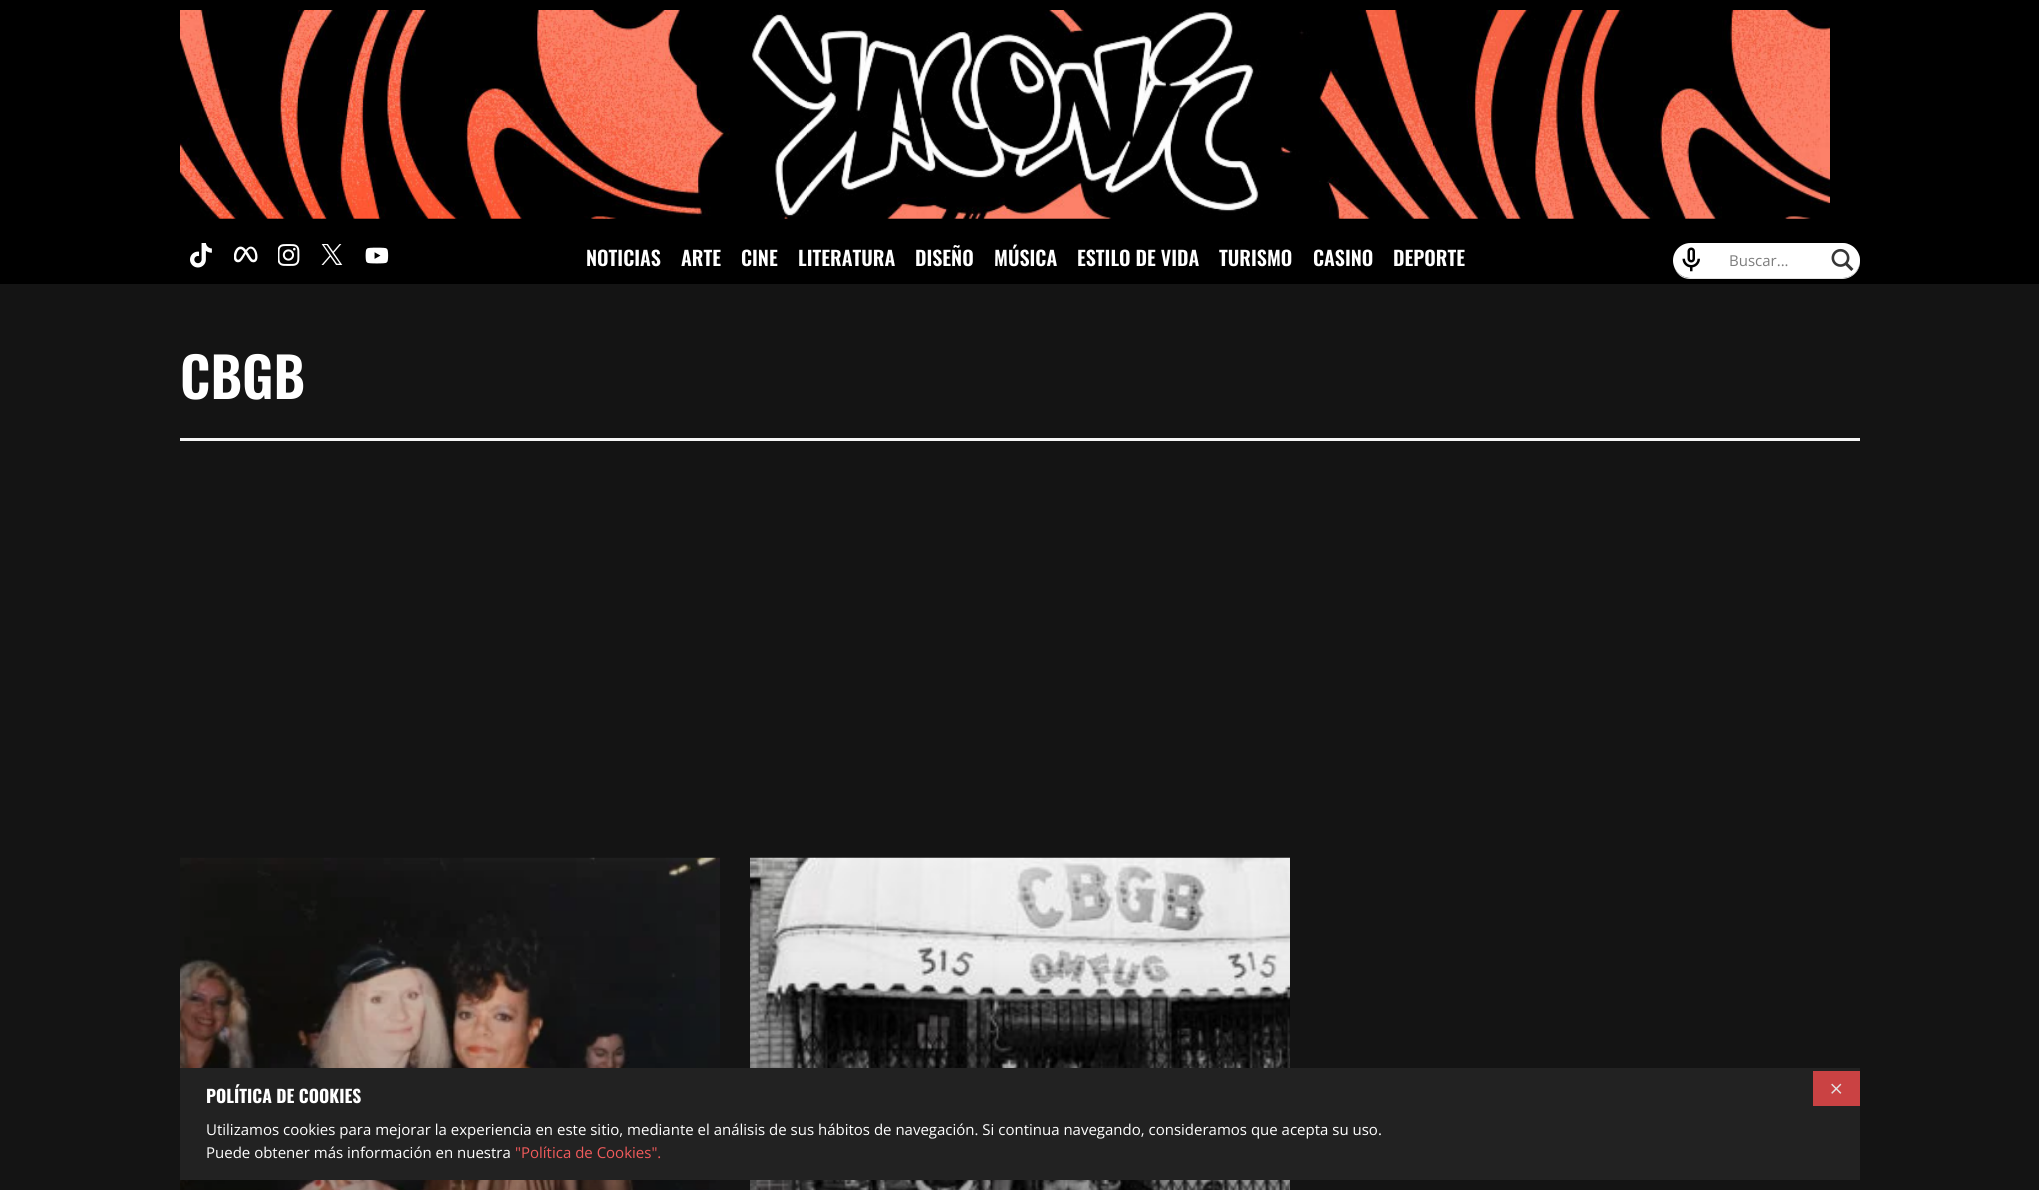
#include <cairo.h>
#include <math.h>
#include <stddef.h>

static cairo_t *ctx;

static void use_color(int r, int g, int b) {
    cairo_set_source_rgb(ctx, r / 255.0, g / 255.0, b / 255.0);
}

static void round_rect(double x, double y, double w, double h, double r) {
    cairo_new_sub_path(ctx);
    cairo_arc(ctx, x + w - r, y + h - r, r, 0, M_PI / 2);
    cairo_arc(ctx, x + r, y + h - r, r, M_PI / 2, M_PI);
    cairo_arc(ctx, x + r, y + r, r, M_PI, 1.5 * M_PI);
    cairo_arc(ctx, x + w - r, y + r, r, 1.5 * M_PI, 2 * M_PI);
    cairo_close_path(ctx);
}

static void picture(const char *path, double x, double y, double w, double h) {
    cairo_surface_t *image = cairo_image_surface_create_from_png(path);
    cairo_save(ctx);
    cairo_set_source_surface(ctx, image, x, y);
    cairo_rectangle(ctx, x, y, w, h);
    cairo_fill(ctx);
    cairo_restore(ctx);
    cairo_surface_destroy(image);
}

int main(void) {
    cairo_surface_t *surface = cairo_image_surface_create(CAIRO_FORMAT_RGB24, 2039, 1190);
    ctx = cairo_create(surface);
    cairo_font_options_t *options = cairo_font_options_create();
    cairo_font_options_set_hint_metrics(options, CAIRO_HINT_METRICS_OFF);
    cairo_font_options_set_hint_style(options, CAIRO_HINT_STYLE_NONE);
    cairo_set_font_options(ctx, options);
    cairo_set_miter_limit(ctx, 4);
    use_color(0, 0, 0);
    cairo_paint(ctx);
    picture("img1.png", 180, 10, 1650, 209);
    picture("img2.png", 190, 243, 22, 25);
    picture("img3.png", 234, 246, 24, 17);
    picture("img4.png", 278, 244, 22, 22);
    picture("img5.png", 321, 244, 22, 21);
    picture("img6.png", 365, 247, 24, 17);
    cairo_select_font_face(ctx, "Oswald SemiBold", CAIRO_FONT_SLANT_NORMAL, CAIRO_FONT_WEIGHT_NORMAL);
    cairo_set_font_size(ctx, 20);
    use_color(255, 255, 255);
    cairo_move_to(ctx, 586, 266);
    cairo_show_text(ctx, "NOTICIAS");
    cairo_move_to(ctx, 681, 266);
    cairo_show_text(ctx, "ARTE");
    cairo_move_to(ctx, 741, 266);
    cairo_show_text(ctx, "CINE");
    cairo_move_to(ctx, 798, 266);
    cairo_show_text(ctx, "LITERATURA");
    cairo_move_to(ctx, 915, 266);
    cairo_show_text(ctx, "DISEÑO");
    cairo_move_to(ctx, 994, 266);
    cairo_show_text(ctx, "MÚSICA");
    cairo_move_to(ctx, 1077, 266);
    cairo_show_text(ctx, "ESTILO DE VIDA");
    cairo_move_to(ctx, 1219, 266);
    cairo_show_text(ctx, "TURISMO");
    cairo_move_to(ctx, 1313, 266);
    cairo_show_text(ctx, "CASINO");
    cairo_move_to(ctx, 1393, 266);
    cairo_show_text(ctx, "DEPORTE");
    use_color(228, 228, 228);
    cairo_new_path(ctx);
    cairo_move_to(ctx, 1674, 266);
    cairo_curve_to(ctx, 1676, 274, 1682, 279, 1690, 279);
    cairo_line_to(ctx, 1842, 279);
    cairo_curve_to(ctx, 1852, 279, 1860, 271, 1860, 262);
    cairo_line_to(ctx, 1860, 261);
    cairo_curve_to(ctx, 1860, 270, 1852, 278, 1842, 278);
    cairo_line_to(ctx, 1690, 278);
    cairo_curve_to(ctx, 1683, 278, 1676, 273, 1674, 266);
    cairo_close_path(ctx);
    cairo_fill(ctx);
    use_color(255, 255, 255);
    round_rect(1673, 243, 187, 35, 17.5);
    cairo_fill(ctx);
    picture("img7.png", 1682, 247, 18, 25);
    cairo_select_font_face(ctx, "Open Sans", CAIRO_FONT_SLANT_NORMAL, CAIRO_FONT_WEIGHT_NORMAL);
    cairo_set_font_size(ctx, 15);
    use_color(125, 125, 125);
    cairo_move_to(ctx, 1729, 266);
    cairo_show_text(ctx, "Buscar...");
    cairo_save(ctx);
    cairo_rectangle(ctx, 1825, 243, 35, 35);
    cairo_clip(ctx);
    cairo_set_source_rgba(ctx, 1, 1, 1, 0.64);
    cairo_set_fill_rule(ctx, CAIRO_FILL_RULE_EVEN_ODD);
    cairo_new_path(ctx);
    cairo_move_to(ctx, 1824, 244);
    cairo_line_to(ctx, 1824, 278);
    cairo_line_to(ctx, 1701, 278);
    cairo_line_to(ctx, 1701, 243);
    cairo_line_to(ctx, 1842, 243);
    cairo_line_to(ctx, 1848, 244);
    cairo_close_path(ctx);
    cairo_move_to(ctx, 1859, 266);
    cairo_curve_to(ctx, 1860, 263, 1860, 258, 1859, 255);
    cairo_close_path(ctx);
    cairo_fill(ctx);
    cairo_restore(ctx);
    picture("img8.png", 1831, 248, 23, 23);
    use_color(20, 20, 20);
    cairo_rectangle(ctx, 0, 284, 2039, 906);
    cairo_fill(ctx);
    cairo_select_font_face(ctx, "Oswald SemiBold", CAIRO_FONT_SLANT_NORMAL, CAIRO_FONT_WEIGHT_NORMAL);
    cairo_set_font_size(ctx, 55);
    use_color(255, 255, 255);
    cairo_move_to(ctx, 180, 399);
    cairo_show_text(ctx, "CBGB");
    use_color(245, 245, 245);
    cairo_rectangle(ctx, 180, 438, 1680, 3);
    cairo_fill(ctx);
    picture("img9.png", 180, 857, 540, 333);
    picture("img10.png", 750, 857, 540, 333);
    use_color(34, 34, 34);
    cairo_rectangle(ctx, 180, 1068, 1680, 112);
    cairo_fill(ctx);
    cairo_select_font_face(ctx, "Oswald", CAIRO_FONT_SLANT_NORMAL, CAIRO_FONT_WEIGHT_BOLD);
    cairo_set_font_size(ctx, 17.5);
    use_color(255, 255, 255);
    cairo_move_to(ctx, 206, 1103);
    cairo_show_text(ctx, "POLÍTICA DE COOKIES");
    cairo_select_font_face(ctx, "Open Sans", CAIRO_FONT_SLANT_NORMAL, CAIRO_FONT_WEIGHT_NORMAL);
    cairo_set_font_size(ctx, 15);
    cairo_move_to(ctx, 206, 1135);
    cairo_show_text(ctx, "Utilizamos cookies para mejorar la experiencia en este sitio, mediante el análisis de sus hábitos de navegación. Si continua navegando, consideramos que acepta su uso.");
    cairo_move_to(ctx, 206, 1158);
    cairo_show_text(ctx, "Puede obtener más información en nuestra");
    use_color(241, 90, 91);
    cairo_move_to(ctx, 515, 1158);
    cairo_show_text(ctx, "\"Política de Cookies\".");
    use_color(202, 66, 67);
    cairo_rectangle(ctx, 1813, 1071, 47, 35);
    cairo_fill(ctx);
    picture("img11.png", 1831, 1083, 11, 11);
    cairo_surface_write_to_png(surface, "result.png");
    cairo_font_options_destroy(options);
    cairo_destroy(ctx);
    cairo_surface_destroy(surface);
    return 0;
}
